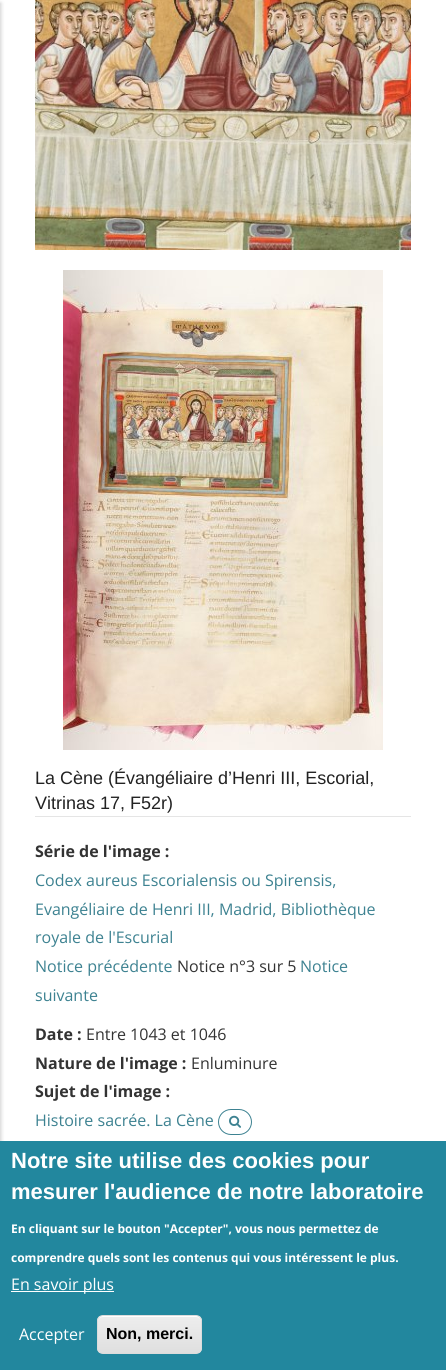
#include <cairo.h>
#include <math.h>
#include <stddef.h>

static cairo_t *ctx;

static void use_color(int r, int g, int b) {
    cairo_set_source_rgb(ctx, r / 255.0, g / 255.0, b / 255.0);
}

static void round_rect(double x, double y, double w, double h, double r) {
    cairo_new_sub_path(ctx);
    cairo_arc(ctx, x + w - r, y + h - r, r, 0, M_PI / 2);
    cairo_arc(ctx, x + r, y + h - r, r, M_PI / 2, M_PI);
    cairo_arc(ctx, x + r, y + r, r, M_PI, 1.5 * M_PI);
    cairo_arc(ctx, x + w - r, y + r, r, 1.5 * M_PI, 2 * M_PI);
    cairo_close_path(ctx);
}

static void shadow(double x, double y, double w, double h, double r, double blur, double alpha) {
    cairo_push_group_with_content(ctx, CAIRO_CONTENT_ALPHA);
    cairo_set_operator(ctx, CAIRO_OPERATOR_SOURCE);
    for (int i = 15; i >= -15 && fmin(w, h) + blur * i / 3 > 0; i -= 2) {
        double e = blur * i / 6;
        cairo_set_source_rgba(ctx, 0, 0, 0, alpha * erfc((i - 1) / 8.5) / 2);
        round_rect(x - e, y - e, w + 2 * e, h + 2 * e, fmax(0, fmin(r + e + blur * .6, fmin(w, h) / 2 + e)));
        cairo_fill(ctx);
    }
    cairo_pattern_t *soft = cairo_pop_group(ctx);
    cairo_mask(ctx, soft);
    cairo_pattern_destroy(soft);
}

static void picture(const char *path, double x, double y, double w, double h) {
    cairo_surface_t *image = cairo_image_surface_create_from_png(path);
    cairo_save(ctx);
    cairo_set_source_surface(ctx, image, x, y);
    cairo_rectangle(ctx, x, y, w, h);
    cairo_fill(ctx);
    cairo_restore(ctx);
    cairo_surface_destroy(image);
}

int main(void) {
    cairo_surface_t *surface = cairo_image_surface_create(CAIRO_FORMAT_RGB24, 446, 1370);
    ctx = cairo_create(surface);
    cairo_font_options_t *options = cairo_font_options_create();
    cairo_font_options_set_hint_metrics(options, CAIRO_HINT_METRICS_OFF);
    cairo_font_options_set_hint_style(options, CAIRO_HINT_STYLE_NONE);
    cairo_set_font_options(ctx, options);
    cairo_set_miter_limit(ctx, 4);
    cairo_pattern_t *gradient;
    use_color(255, 255, 255);
    cairo_paint(ctx);
    use_color(0, 0, 0);
    shadow(-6, 3, 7, 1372, 0, 2, 0.2);
    picture("img1.png", 35, 0, 376, 250);
    picture("img2.png", 63, 270, 320, 480);
    use_color(229, 229, 229);
    cairo_rectangle(ctx, 35, 816, 376, 1);
    cairo_fill(ctx);
    cairo_select_font_face(ctx, "Liberation Sans", CAIRO_FONT_SLANT_NORMAL, CAIRO_FONT_WEIGHT_NORMAL);
    cairo_set_font_size(ctx, 18);
    use_color(34, 34, 34);
    cairo_move_to(ctx, 35, 784);
    cairo_show_text(ctx, "La Cène (Évangéliaire d’Henri III, Escorial,");
    cairo_move_to(ctx, 35, 809);
    cairo_show_text(ctx, "Vitrinas 17, F52r)");
    cairo_select_font_face(ctx, "Open Sans", CAIRO_FONT_SLANT_NORMAL, CAIRO_FONT_WEIGHT_BOLD);
    cairo_set_font_size(ctx, 16);
    use_color(51, 51, 51);
    cairo_move_to(ctx, 35, 857);
    cairo_show_text(ctx, "Série de l'image :");
    cairo_select_font_face(ctx, "Open Sans", CAIRO_FONT_SLANT_NORMAL, CAIRO_FONT_WEIGHT_NORMAL);
    use_color(61, 130, 145);
    cairo_move_to(ctx, 35, 886);
    cairo_show_text(ctx, "Codex aureus Escorialensis ou Spirensis,");
    cairo_move_to(ctx, 35, 915);
    cairo_show_text(ctx, "Evangéliaire de Henri III, Madrid, Bibliothèque");
    cairo_move_to(ctx, 35, 943);
    cairo_show_text(ctx, "royale de l'Escurial");
    cairo_move_to(ctx, 35, 972);
    cairo_show_text(ctx, "Notice précédente");
    use_color(51, 51, 51);
    cairo_move_to(ctx, 177, 972);
    cairo_show_text(ctx, "Notice n°3 sur 5");
    use_color(61, 130, 145);
    cairo_move_to(ctx, 300, 972);
    cairo_show_text(ctx, "Notice");
    cairo_move_to(ctx, 35, 1001);
    cairo_show_text(ctx, "suivante");
    cairo_select_font_face(ctx, "Open Sans", CAIRO_FONT_SLANT_NORMAL, CAIRO_FONT_WEIGHT_BOLD);
    use_color(51, 51, 51);
    cairo_move_to(ctx, 35, 1040);
    cairo_show_text(ctx, "Date :");
    cairo_select_font_face(ctx, "Open Sans", CAIRO_FONT_SLANT_NORMAL, CAIRO_FONT_WEIGHT_NORMAL);
    cairo_move_to(ctx, 86, 1040);
    cairo_show_text(ctx, "Entre 1043 et 1046");
    cairo_select_font_face(ctx, "Open Sans", CAIRO_FONT_SLANT_NORMAL, CAIRO_FONT_WEIGHT_BOLD);
    cairo_move_to(ctx, 35, 1069);
    cairo_show_text(ctx, "Nature de l'image :");
    cairo_select_font_face(ctx, "Open Sans", CAIRO_FONT_SLANT_NORMAL, CAIRO_FONT_WEIGHT_NORMAL);
    cairo_move_to(ctx, 191, 1069);
    cairo_show_text(ctx, "Enluminure");
    cairo_select_font_face(ctx, "Open Sans", CAIRO_FONT_SLANT_NORMAL, CAIRO_FONT_WEIGHT_BOLD);
    cairo_move_to(ctx, 35, 1097);
    cairo_show_text(ctx, "Sujet de l'image :");
    cairo_select_font_face(ctx, "Open Sans", CAIRO_FONT_SLANT_NORMAL, CAIRO_FONT_WEIGHT_NORMAL);
    use_color(61, 130, 145);
    cairo_move_to(ctx, 35, 1126);
    cairo_show_text(ctx, "Histoire sacrée. La Cène");
    round_rect(218.5, 1109.5, 33, 25, 12.5);
    cairo_set_line_width(ctx, 1);
    cairo_stroke(ctx);
    picture("img3.png", 229, 1115, 12, 13);
    use_color(34, 135, 158);
    cairo_rectangle(ctx, 0, 1141, 446, 229);
    cairo_fill(ctx);
    cairo_select_font_face(ctx, "Liberation Sans", CAIRO_FONT_SLANT_NORMAL, CAIRO_FONT_WEIGHT_BOLD);
    cairo_set_font_size(ctx, 22);
    use_color(255, 255, 255);
    cairo_move_to(ctx, 11, 1168);
    cairo_show_text(ctx, "Notre site utilise des cookies pour");
    cairo_move_to(ctx, 11, 1199);
    cairo_show_text(ctx, "mesurer l'audience de notre laboratoire");
    cairo_select_font_face(ctx, "Open Sans", CAIRO_FONT_SLANT_NORMAL, CAIRO_FONT_WEIGHT_BOLD);
    cairo_set_font_size(ctx, 12);
    cairo_move_to(ctx, 11, 1233);
    cairo_show_text(ctx, "En cliquant sur le bouton \"Accepter\", vous nous permettez de");
    cairo_move_to(ctx, 11, 1262);
    cairo_show_text(ctx, "comprendre quels sont les contenus qui vous intéressent le plus.");
    cairo_rectangle(ctx, 11, 1291, 103, 1);
    cairo_fill(ctx);
    cairo_select_font_face(ctx, "Open Sans", CAIRO_FONT_SLANT_NORMAL, CAIRO_FONT_WEIGHT_NORMAL);
    cairo_set_font_size(ctx, 16);
    cairo_move_to(ctx, 11, 1290);
    cairo_show_text(ctx, "En savoir plus");
    cairo_move_to(ctx, 19, 1340);
    cairo_show_text(ctx, "Accepter");
    cairo_save(ctx);
    round_rect(97, 1315, 105, 39, 6);
    cairo_clip(ctx);
    gradient = cairo_pattern_create_linear(150, 1316, 150, 1353);
    cairo_pattern_add_color_stop_rgba(gradient, 0.05, 0.929, 0.929, 0.929, 1);
    cairo_pattern_add_color_stop_rgba(gradient, 1, 0.875, 0.875, 0.875, 1);
    cairo_set_source(ctx, gradient);
    cairo_pattern_destroy(gradient);
    cairo_rectangle(ctx, 97, 1316, 105, 37);
    cairo_fill(ctx);
    cairo_restore(ctx);
    cairo_new_path(ctx);
    cairo_move_to(ctx, 103, 1317);
    cairo_line_to(ctx, 196, 1317);
    cairo_curve_to(ctx, 199, 1317, 201, 1319, 201, 1322);
    cairo_curve_to(ctx, 201, 1312, 186, 1316, 180, 1316);
    cairo_line_to(ctx, 118, 1316);
    cairo_curve_to(ctx, 113, 1316, 98, 1312, 98, 1322);
    cairo_curve_to(ctx, 98, 1319, 100, 1317, 103, 1317);
    cairo_close_path(ctx);
    cairo_fill(ctx);
    round_rect(97.5, 1315.5, 104, 38, 5.5);
    use_color(220, 220, 220);
    cairo_stroke(ctx);
    cairo_select_font_face(ctx, "Liberation Sans", CAIRO_FONT_SLANT_NORMAL, CAIRO_FONT_WEIGHT_BOLD);
    use_color(0, 0, 0);
    cairo_move_to(ctx, 106, 1339);
    cairo_show_text(ctx, "Non, merci.");
    cairo_surface_write_to_png(surface, "result.png");
    cairo_font_options_destroy(options);
    cairo_destroy(ctx);
    cairo_surface_destroy(surface);
    return 0;
}
